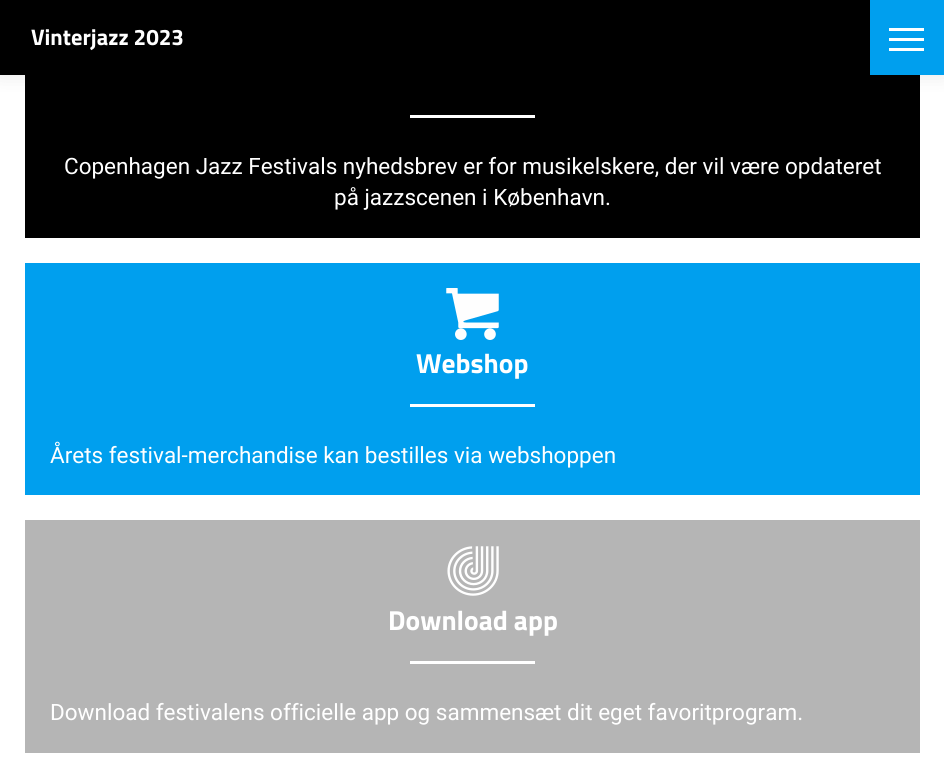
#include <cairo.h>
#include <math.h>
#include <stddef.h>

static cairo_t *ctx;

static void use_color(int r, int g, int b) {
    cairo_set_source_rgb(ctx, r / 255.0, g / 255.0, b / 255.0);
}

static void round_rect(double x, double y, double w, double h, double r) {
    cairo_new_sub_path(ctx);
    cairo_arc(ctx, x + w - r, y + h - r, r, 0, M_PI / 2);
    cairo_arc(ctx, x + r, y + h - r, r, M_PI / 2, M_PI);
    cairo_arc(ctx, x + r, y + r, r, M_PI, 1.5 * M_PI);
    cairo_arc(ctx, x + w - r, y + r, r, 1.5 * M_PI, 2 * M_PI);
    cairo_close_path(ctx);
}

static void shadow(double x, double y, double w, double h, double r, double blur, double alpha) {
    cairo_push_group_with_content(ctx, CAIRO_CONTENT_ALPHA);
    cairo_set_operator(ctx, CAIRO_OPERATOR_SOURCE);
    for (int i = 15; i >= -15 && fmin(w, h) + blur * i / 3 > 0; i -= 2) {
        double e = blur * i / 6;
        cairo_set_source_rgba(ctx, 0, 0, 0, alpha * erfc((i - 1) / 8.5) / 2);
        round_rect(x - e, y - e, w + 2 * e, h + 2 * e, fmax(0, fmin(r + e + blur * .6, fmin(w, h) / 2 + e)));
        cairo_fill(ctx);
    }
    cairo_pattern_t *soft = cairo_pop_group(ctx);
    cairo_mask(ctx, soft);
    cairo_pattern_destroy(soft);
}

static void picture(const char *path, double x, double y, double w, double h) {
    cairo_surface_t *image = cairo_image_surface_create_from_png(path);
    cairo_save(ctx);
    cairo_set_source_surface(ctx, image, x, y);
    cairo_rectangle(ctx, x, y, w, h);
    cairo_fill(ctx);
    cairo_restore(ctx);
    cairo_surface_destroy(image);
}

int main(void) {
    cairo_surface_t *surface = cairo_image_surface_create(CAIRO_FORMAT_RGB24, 944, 771);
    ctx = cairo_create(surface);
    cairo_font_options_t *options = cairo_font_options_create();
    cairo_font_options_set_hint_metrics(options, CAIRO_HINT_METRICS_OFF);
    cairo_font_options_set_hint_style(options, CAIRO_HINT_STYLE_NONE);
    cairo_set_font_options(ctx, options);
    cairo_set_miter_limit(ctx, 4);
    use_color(255, 255, 255);
    cairo_paint(ctx);
    use_color(0, 0, 0);
    cairo_rectangle(ctx, 25, 75, 895, 163);
    cairo_fill(ctx);
    use_color(0, 0, 0);
    shadow(0, 0, 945, 75, 0, 9.5, 0.1);
    use_color(0, 0, 0);
    cairo_rectangle(ctx, 0, 0, 870, 75);
    cairo_fill(ctx);
    cairo_select_font_face(ctx, "Titillium Web", CAIRO_FONT_SLANT_NORMAL, CAIRO_FONT_WEIGHT_BOLD);
    cairo_set_font_size(ctx, 22.5);
    use_color(255, 255, 255);
    cairo_move_to(ctx, 31, 45);
    cairo_show_text(ctx, "Vinterjazz 2023");
    use_color(0, 159, 238);
    cairo_rectangle(ctx, 870, 0, 74, 75);
    cairo_fill(ctx);
    use_color(255, 255, 255);
    cairo_rectangle(ctx, 889, 28, 35, 3);
    cairo_fill(ctx);
    cairo_rectangle(ctx, 889, 38, 35, 3);
    cairo_fill(ctx);
    cairo_rectangle(ctx, 889, 48, 35, 3);
    cairo_fill(ctx);
    cairo_rectangle(ctx, 410, 115, 125, 3);
    cairo_fill(ctx);
    cairo_select_font_face(ctx, "Roboto", CAIRO_FONT_SLANT_NORMAL, CAIRO_FONT_WEIGHT_NORMAL);
    cairo_move_to(ctx, 64, 174);
    cairo_show_text(ctx, "Copenhagen Jazz Festivals nyhedsbrev er for musikelskere, der vil være opdateret");
    cairo_move_to(ctx, 334, 205);
    cairo_show_text(ctx, "på jazzscenen i København.");
    use_color(0, 159, 238);
    cairo_rectangle(ctx, 25, 263, 895, 232);
    cairo_fill(ctx);
    picture("img1.png", 446, 288, 53, 52);
    cairo_select_font_face(ctx, "Titillium Web", CAIRO_FONT_SLANT_NORMAL, CAIRO_FONT_WEIGHT_BOLD);
    cairo_set_font_size(ctx, 27.5);
    use_color(255, 255, 255);
    cairo_move_to(ctx, 416, 373);
    cairo_show_text(ctx, "Webshop");
    cairo_rectangle(ctx, 410, 404, 125, 3);
    cairo_fill(ctx);
    cairo_select_font_face(ctx, "Roboto", CAIRO_FONT_SLANT_NORMAL, CAIRO_FONT_WEIGHT_NORMAL);
    cairo_set_font_size(ctx, 22.5);
    cairo_move_to(ctx, 50, 463);
    cairo_show_text(ctx, "Årets festival-merchandise kan bestilles via webshoppen");
    use_color(181, 181, 181);
    cairo_rectangle(ctx, 25, 520, 895, 233);
    cairo_fill(ctx);
    picture("img2.png", 447, 546, 52, 50);
    cairo_select_font_face(ctx, "Titillium Web", CAIRO_FONT_SLANT_NORMAL, CAIRO_FONT_WEIGHT_BOLD);
    cairo_set_font_size(ctx, 27.5);
    use_color(255, 255, 255);
    cairo_move_to(ctx, 388, 630);
    cairo_show_text(ctx, "Download app");
    cairo_rectangle(ctx, 410, 661, 125, 3);
    cairo_fill(ctx);
    cairo_select_font_face(ctx, "Roboto", CAIRO_FONT_SLANT_NORMAL, CAIRO_FONT_WEIGHT_NORMAL);
    cairo_set_font_size(ctx, 22.5);
    cairo_move_to(ctx, 50, 720);
    cairo_show_text(ctx, "Download festivalens officielle app og sammensæt dit eget favoritprogram.");
    cairo_surface_write_to_png(surface, "result.png");
    cairo_font_options_destroy(options);
    cairo_destroy(ctx);
    cairo_surface_destroy(surface);
    return 0;
}
